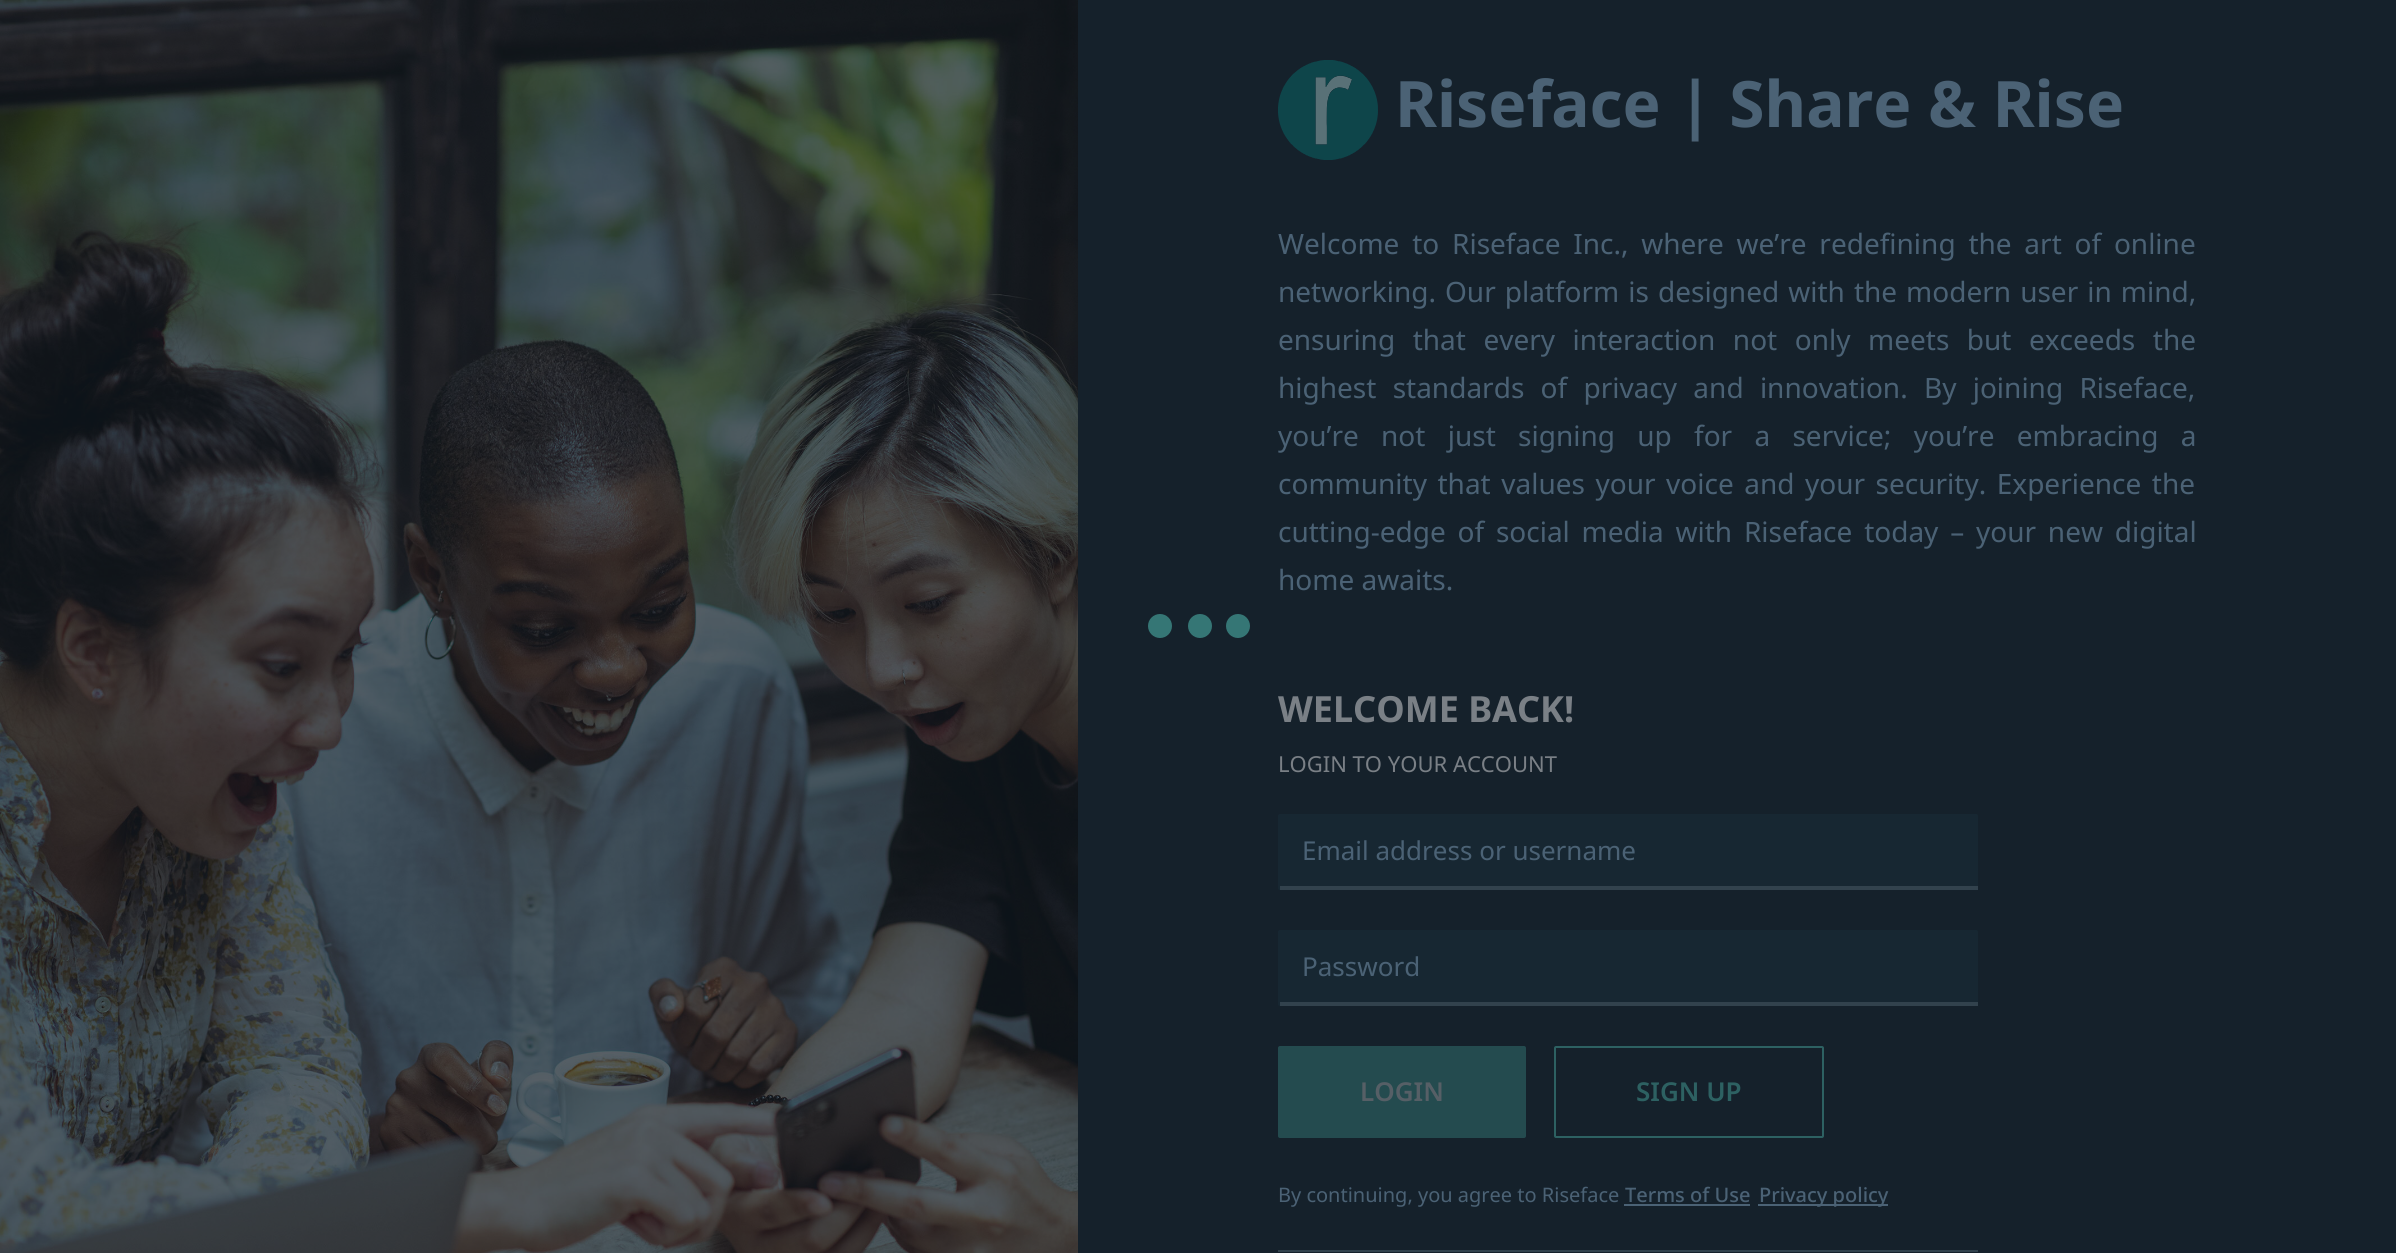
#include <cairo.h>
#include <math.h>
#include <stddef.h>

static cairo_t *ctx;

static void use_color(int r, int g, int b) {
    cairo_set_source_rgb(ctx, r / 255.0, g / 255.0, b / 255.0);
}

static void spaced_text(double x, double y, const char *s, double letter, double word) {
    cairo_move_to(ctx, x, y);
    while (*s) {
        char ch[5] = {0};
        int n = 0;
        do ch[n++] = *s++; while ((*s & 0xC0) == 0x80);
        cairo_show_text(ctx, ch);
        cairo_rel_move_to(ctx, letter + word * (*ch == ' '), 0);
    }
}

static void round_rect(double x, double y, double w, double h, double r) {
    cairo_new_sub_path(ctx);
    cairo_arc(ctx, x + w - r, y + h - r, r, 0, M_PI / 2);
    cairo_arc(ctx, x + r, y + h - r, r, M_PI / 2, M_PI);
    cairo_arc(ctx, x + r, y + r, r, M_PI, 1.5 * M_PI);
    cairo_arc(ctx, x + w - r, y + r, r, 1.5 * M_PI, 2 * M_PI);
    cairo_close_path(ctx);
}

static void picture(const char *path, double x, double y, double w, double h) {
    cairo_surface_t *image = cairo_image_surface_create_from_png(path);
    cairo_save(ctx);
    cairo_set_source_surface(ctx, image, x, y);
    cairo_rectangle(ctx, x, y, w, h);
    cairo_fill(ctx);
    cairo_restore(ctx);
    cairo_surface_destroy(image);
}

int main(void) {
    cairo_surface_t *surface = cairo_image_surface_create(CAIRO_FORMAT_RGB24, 2396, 1253);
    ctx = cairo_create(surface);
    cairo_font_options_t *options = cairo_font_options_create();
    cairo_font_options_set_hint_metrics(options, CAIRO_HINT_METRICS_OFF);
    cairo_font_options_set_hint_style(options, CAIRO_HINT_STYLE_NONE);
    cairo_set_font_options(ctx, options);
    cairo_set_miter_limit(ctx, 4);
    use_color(21, 33, 43);
    cairo_paint(ctx);
    use_color(53, 118, 117);
    cairo_arc(ctx, 1160, 626, 12, 0, 2 * M_PI);
    cairo_fill(ctx);
    cairo_arc(ctx, 1200, 626, 12, 0, 2 * M_PI);
    cairo_fill(ctx);
    cairo_arc(ctx, 1238, 626, 12, 0, 2 * M_PI);
    cairo_fill(ctx);
    picture("img1.png", 0, 0, 1078, 1253);
    picture("img2.png", 1278, 60, 100, 100);
    cairo_select_font_face(ctx, "Noto Sans", CAIRO_FONT_SLANT_NORMAL, CAIRO_FONT_WEIGHT_BOLD);
    cairo_set_font_size(ctx, 64);
    use_color(75, 98, 117);
    cairo_move_to(ctx, 1395, 127);
    cairo_show_text(ctx, "Riseface | Share & Rise");
    cairo_select_font_face(ctx, "Noto Sans", CAIRO_FONT_SLANT_NORMAL, CAIRO_FONT_WEIGHT_NORMAL);
    cairo_set_font_size(ctx, 28);
    spaced_text(1278, 254, "Welcome to Riseface Inc., where we’re redefining the art of online", 0, 5.5);
    spaced_text(1278, 302, "networking. Our platform is designed with the modern user in mind,", 0, 1.75);
    spaced_text(1278, 350, "ensuring that every interaction not only meets but exceeds the", 0, 10.25);
    spaced_text(1278, 398, "highest standards of privacy and innovation. By joining Riseface,", 0, 9);
    spaced_text(1278, 446, "you’re not just signing up for a service; you’re embracing a", 0, 15);
    spaced_text(1278, 494, "community that values your voice and your security. Experience the", 0, 3.25);
    spaced_text(1278, 542, "cutting-edge of social media with Riseface today – your new digital", 0, 4.5);
    cairo_move_to(ctx, 1278, 590);
    cairo_show_text(ctx, "home awaits.");
    cairo_select_font_face(ctx, "Noto Sans", CAIRO_FONT_SLANT_NORMAL, CAIRO_FONT_WEIGHT_BOLD);
    cairo_set_font_size(ctx, 36);
    use_color(122, 128, 134);
    cairo_move_to(ctx, 1278, 722);
    cairo_show_text(ctx, "WELCOME BACK!");
    cairo_select_font_face(ctx, "Noto Sans", CAIRO_FONT_SLANT_NORMAL, CAIRO_FONT_WEIGHT_NORMAL);
    cairo_set_font_size(ctx, 22);
    cairo_move_to(ctx, 1278, 772);
    cairo_show_text(ctx, "LOGIN TO YOUR ACCOUNT");
    use_color(23, 39, 50);
    round_rect(1278, 814, 700, 76, 2);
    cairo_fill(ctx);
    use_color(50, 66, 77);
    cairo_rectangle(ctx, 1280, 886, 698, 4);
    cairo_fill(ctx);
    cairo_set_font_size(ctx, 26);
    use_color(75, 98, 117);
    cairo_move_to(ctx, 1302, 860);
    cairo_show_text(ctx, "Email address or username");
    use_color(23, 39, 50);
    round_rect(1278, 930, 700, 76, 2);
    cairo_fill(ctx);
    use_color(50, 66, 77);
    cairo_rectangle(ctx, 1280, 1002, 698, 4);
    cairo_fill(ctx);
    use_color(75, 98, 117);
    cairo_move_to(ctx, 1302, 976);
    cairo_show_text(ctx, "Password");
    use_color(36, 75, 79);
    round_rect(1278, 1046, 248, 92, 2);
    cairo_fill(ctx);
    cairo_select_font_face(ctx, "Noto Sans SemiBold", CAIRO_FONT_SLANT_NORMAL, CAIRO_FONT_WEIGHT_NORMAL);
    use_color(86, 95, 102);
    cairo_move_to(ctx, 1360, 1101);
    cairo_show_text(ctx, "LOGIN");
    round_rect(1555, 1047, 268, 90, 1);
    use_color(45, 97, 98);
    cairo_stroke(ctx);
    cairo_move_to(ctx, 1636, 1101);
    cairo_show_text(ctx, "SIGN UP");
    cairo_select_font_face(ctx, "Noto Sans", CAIRO_FONT_SLANT_NORMAL, CAIRO_FONT_WEIGHT_NORMAL);
    cairo_set_font_size(ctx, 20);
    use_color(75, 98, 117);
    cairo_move_to(ctx, 1278, 1202);
    cairo_show_text(ctx, "By continuing, you agree to Riseface");
    cairo_select_font_face(ctx, "Noto Sans Medium", CAIRO_FONT_SLANT_NORMAL, CAIRO_FONT_WEIGHT_NORMAL);
    cairo_move_to(ctx, 1625, 1202);
    cairo_show_text(ctx, "Terms of Use");
    cairo_rectangle(ctx, 1624, 1204, 126, 2);
    cairo_fill(ctx);
    cairo_rectangle(ctx, 1758, 1204, 130, 2);
    cairo_fill(ctx);
    cairo_move_to(ctx, 1759, 1202);
    cairo_show_text(ctx, "Privacy policy");
    use_color(50, 66, 77);
    cairo_rectangle(ctx, 1278, 1250, 700, 2);
    cairo_fill(ctx);
    cairo_surface_write_to_png(surface, "result.png");
    cairo_font_options_destroy(options);
    cairo_destroy(ctx);
    cairo_surface_destroy(surface);
    return 0;
}
